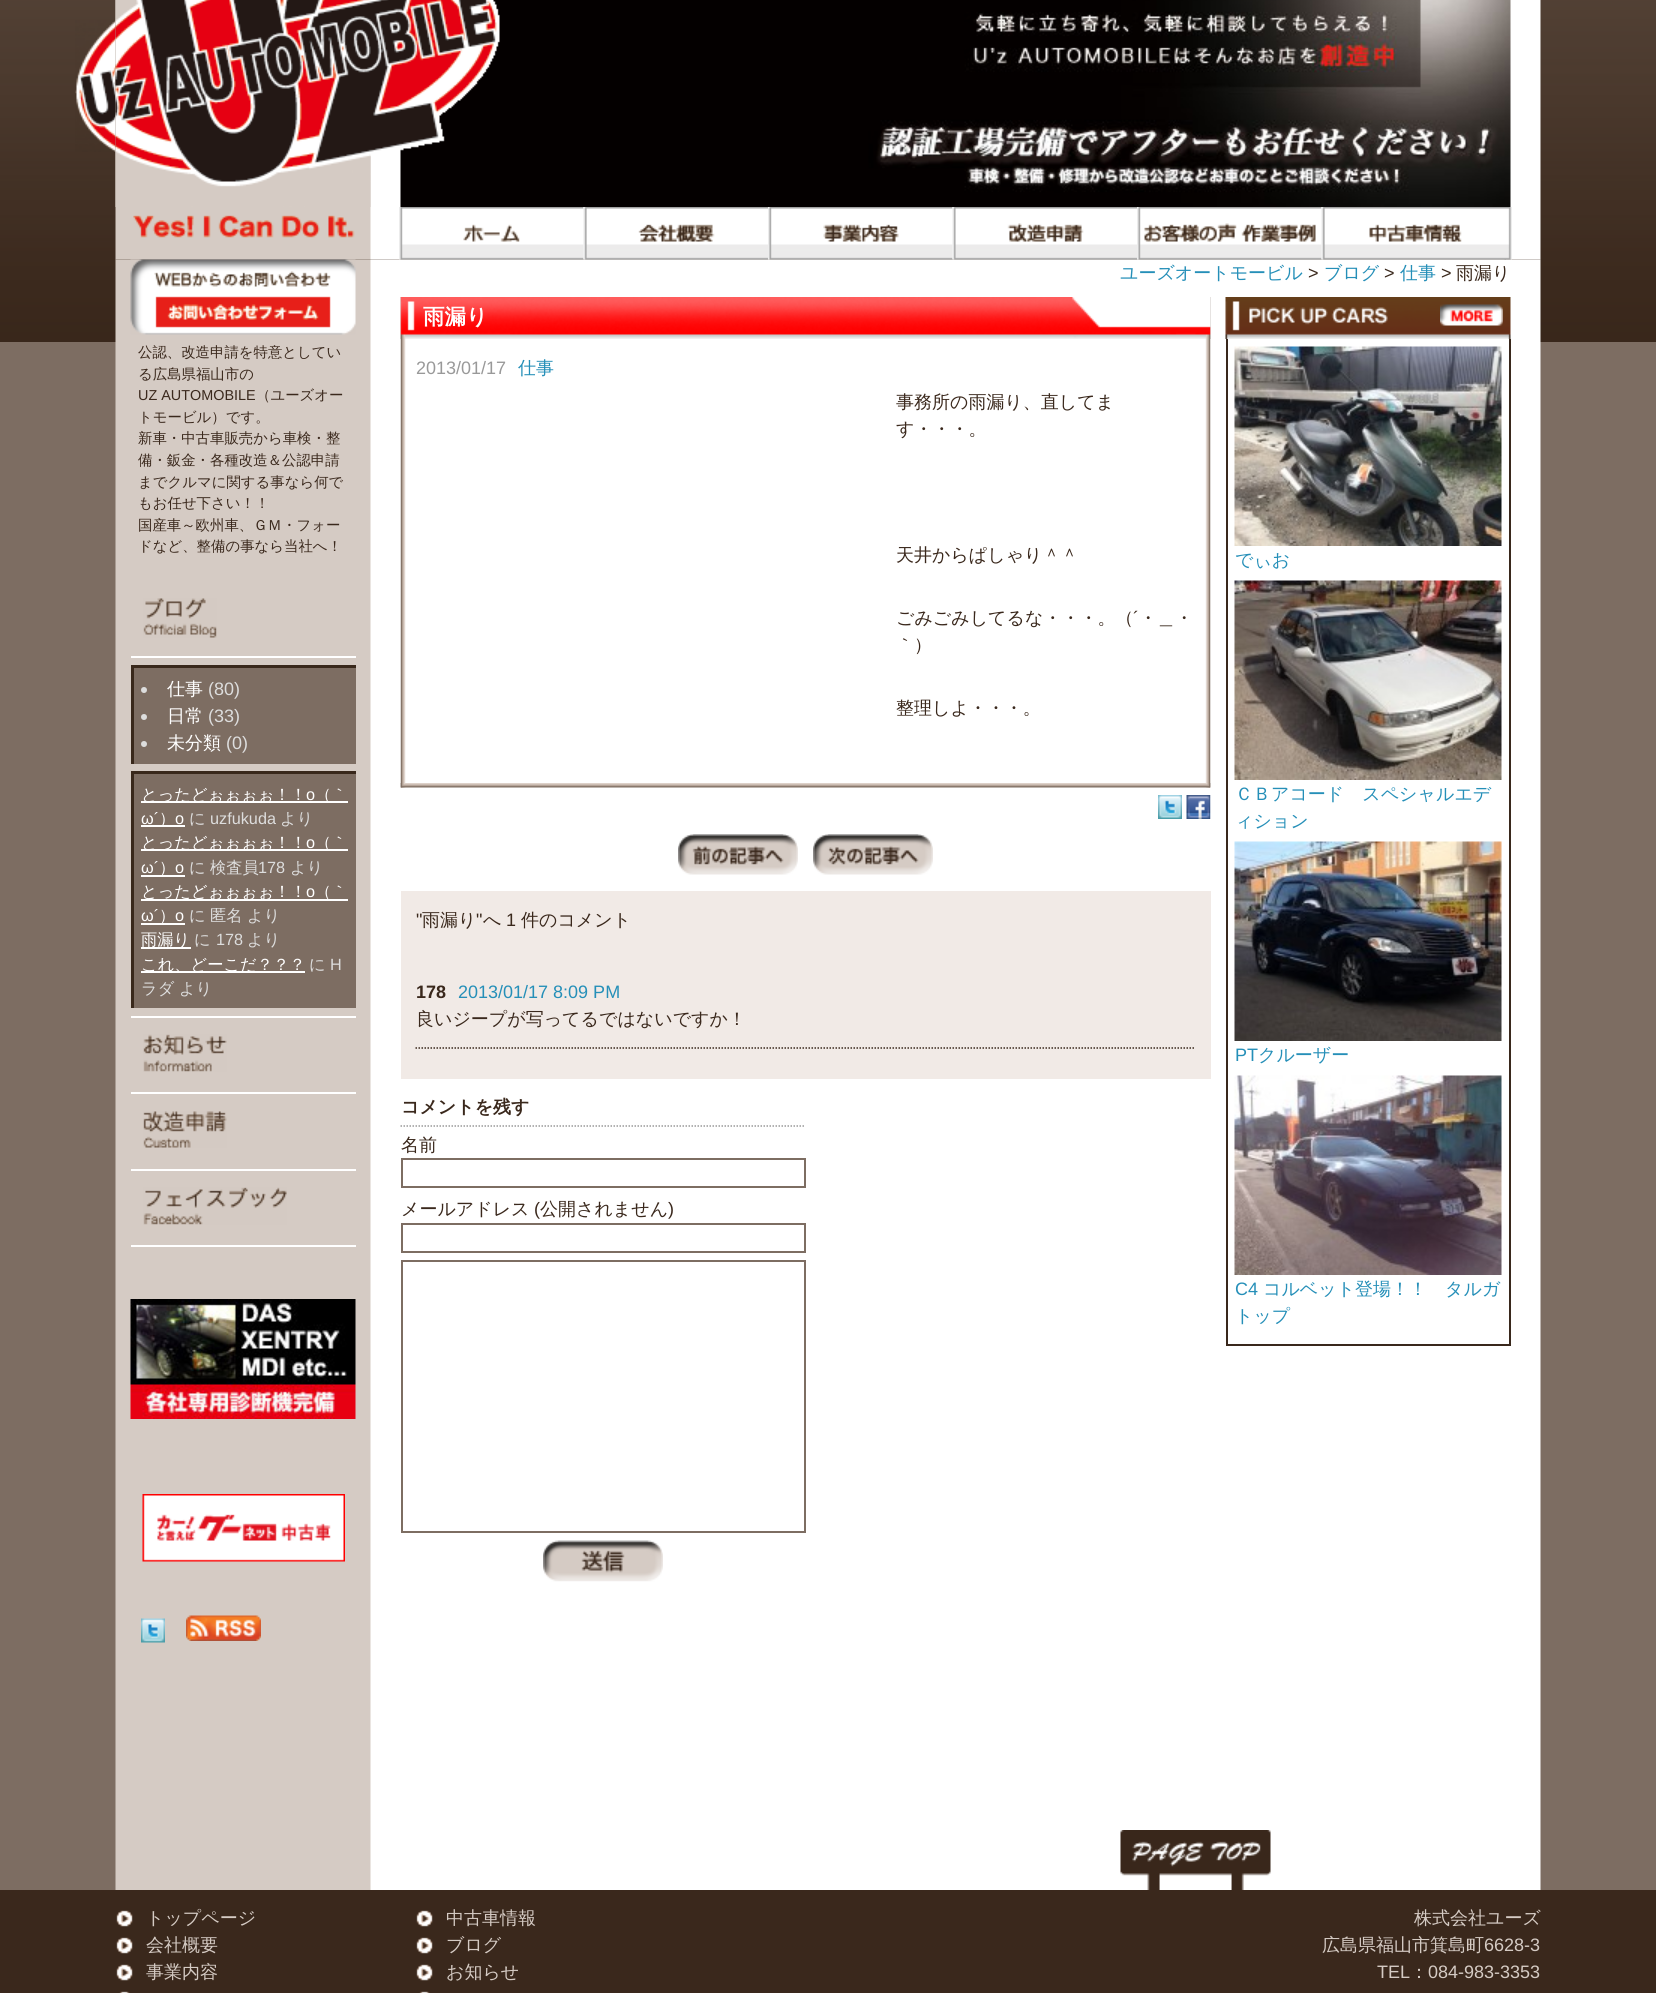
#include <cairo.h>
#include <math.h>
#include <stddef.h>

static cairo_t *ctx;

static void use_color(int r, int g, int b) {
    cairo_set_source_rgb(ctx, r / 255.0, g / 255.0, b / 255.0);
}

static void picture(const char *path, double x, double y, double w, double h) {
    cairo_surface_t *image = cairo_image_surface_create_from_png(path);
    cairo_save(ctx);
    cairo_set_source_surface(ctx, image, x, y);
    cairo_rectangle(ctx, x, y, w, h);
    cairo_fill(ctx);
    cairo_restore(ctx);
    cairo_surface_destroy(image);
}

int main(void) {
    cairo_surface_t *surface = cairo_image_surface_create(CAIRO_FORMAT_RGB24, 1656, 1993);
    ctx = cairo_create(surface);
    cairo_font_options_t *options = cairo_font_options_create();
    cairo_font_options_set_hint_metrics(options, CAIRO_HINT_METRICS_OFF);
    cairo_font_options_set_hint_style(options, CAIRO_HINT_STYLE_NONE);
    cairo_set_font_options(ctx, options);
    cairo_set_miter_limit(ctx, 4);
    use_color(125, 109, 98);
    cairo_paint(ctx);
    picture("img1.png", 0, 0, 1656, 342);
    picture("img2.png", 75, 20, 41, 132);
    picture("img3.png", 115, 0, 1426, 260);
    picture("img4.png", 400, 0, 1111, 207);
    picture("img5.png", 115, 0, 385, 207);
    picture("img6.png", 133, 215, 222, 23);
    picture("img14.png", 115, 259, 1426, 1631);
    picture("img7.png", 399, 207, 185, 53);
    picture("img8.png", 583, 207, 185, 53);
    picture("img9.png", 768, 207, 185, 53);
    picture("img10.png", 952, 207, 185, 53);
    picture("img11.png", 1137, 207, 185, 53);
    picture("img12.png", 1504, 207, 8, 53);
    picture("img13.png", 1321, 207, 185, 53);
    picture("img15.png", 130, 259, 226, 76);
    cairo_select_font_face(ctx, "WenQuanYi Zen Hei Medium", CAIRO_FONT_SLANT_NORMAL, CAIRO_FONT_WEIGHT_NORMAL);
    cairo_set_font_size(ctx, 14.4);
    use_color(58, 40, 28);
    cairo_move_to(ctx, 138, 357);
    cairo_show_text(ctx, "公認、改造申請を特意としてい");
    cairo_move_to(ctx, 138, 379);
    cairo_show_text(ctx, "る広島県福山市の");
    cairo_select_font_face(ctx, "Liberation Sans", CAIRO_FONT_SLANT_NORMAL, CAIRO_FONT_WEIGHT_NORMAL);
    cairo_move_to(ctx, 138, 400);
    cairo_show_text(ctx, "UZ AUTOMOBILE");
    cairo_select_font_face(ctx, "WenQuanYi Zen Hei Medium", CAIRO_FONT_SLANT_NORMAL, CAIRO_FONT_WEIGHT_NORMAL);
    cairo_move_to(ctx, 256, 400);
    cairo_show_text(ctx, "（ユーズオー");
    cairo_move_to(ctx, 138, 422);
    cairo_show_text(ctx, "トモービル）です。");
    cairo_move_to(ctx, 138, 443);
    cairo_show_text(ctx, "新車・中古車販売から車検・整");
    cairo_move_to(ctx, 138, 465);
    cairo_show_text(ctx, "備・鈑金・各種改造＆公認申請");
    cairo_move_to(ctx, 138, 487);
    cairo_show_text(ctx, "までクルマに関する事なら何で");
    cairo_move_to(ctx, 138, 508);
    cairo_show_text(ctx, "もお任せ下さい！！");
    cairo_move_to(ctx, 138, 530);
    cairo_show_text(ctx, "国産車～欧州車、ＧＭ・フォー");
    cairo_move_to(ctx, 138, 551);
    cairo_show_text(ctx, "ドなど、整備の事なら当社へ！");
    use_color(255, 255, 255);
    cairo_rectangle(ctx, 131, 656, 225, 2);
    cairo_fill(ctx);
    picture("img16.png", 143, 598, 74, 40);
    cairo_rectangle(ctx, 131, 1016, 225, 2);
    cairo_fill(ctx);
    use_color(125, 109, 98);
    cairo_rectangle(ctx, 134, 668, 222, 96);
    cairo_fill(ctx);
    use_color(57, 40, 27);
    cairo_rectangle(ctx, 131, 665, 225, 3);
    cairo_fill(ctx);
    cairo_rectangle(ctx, 131, 665, 3, 99);
    cairo_fill(ctx);
    use_color(221, 221, 221);
    cairo_arc(ctx, 144, 690, 3, 0, 2 * M_PI);
    cairo_fill(ctx);
    cairo_set_font_size(ctx, 18);
    use_color(255, 255, 255);
    cairo_move_to(ctx, 167, 695);
    cairo_show_text(ctx, "仕事");
    cairo_select_font_face(ctx, "Liberation Sans", CAIRO_FONT_SLANT_NORMAL, CAIRO_FONT_WEIGHT_NORMAL);
    use_color(221, 221, 221);
    cairo_move_to(ctx, 208, 695);
    cairo_show_text(ctx, "(80)");
    cairo_new_path(ctx);
    cairo_arc(ctx, 144, 717, 3, 0, 2 * M_PI);
    cairo_fill(ctx);
    cairo_select_font_face(ctx, "WenQuanYi Zen Hei Medium", CAIRO_FONT_SLANT_NORMAL, CAIRO_FONT_WEIGHT_NORMAL);
    use_color(255, 255, 255);
    cairo_move_to(ctx, 167, 722);
    cairo_show_text(ctx, "日常");
    cairo_select_font_face(ctx, "Liberation Sans", CAIRO_FONT_SLANT_NORMAL, CAIRO_FONT_WEIGHT_NORMAL);
    use_color(221, 221, 221);
    cairo_move_to(ctx, 208, 722);
    cairo_show_text(ctx, "(33)");
    cairo_new_path(ctx);
    cairo_arc(ctx, 144, 744, 3, 0, 2 * M_PI);
    cairo_fill(ctx);
    cairo_select_font_face(ctx, "WenQuanYi Zen Hei Medium", CAIRO_FONT_SLANT_NORMAL, CAIRO_FONT_WEIGHT_NORMAL);
    use_color(255, 255, 255);
    cairo_move_to(ctx, 167, 749);
    cairo_show_text(ctx, "未分類");
    cairo_select_font_face(ctx, "Liberation Sans", CAIRO_FONT_SLANT_NORMAL, CAIRO_FONT_WEIGHT_NORMAL);
    use_color(221, 221, 221);
    cairo_move_to(ctx, 226, 749);
    cairo_show_text(ctx, "(0)");
    use_color(125, 109, 98);
    cairo_rectangle(ctx, 134, 774, 222, 234);
    cairo_fill(ctx);
    use_color(57, 40, 27);
    cairo_rectangle(ctx, 131, 771, 225, 3);
    cairo_fill(ctx);
    cairo_rectangle(ctx, 131, 771, 3, 237);
    cairo_fill(ctx);
    use_color(255, 255, 255);
    cairo_rectangle(ctx, 141, 801, 207, 2);
    cairo_fill(ctx);
    cairo_select_font_face(ctx, "WenQuanYi Zen Hei Medium", CAIRO_FONT_SLANT_NORMAL, CAIRO_FONT_WEIGHT_NORMAL);
    cairo_set_font_size(ctx, 16.25);
    cairo_move_to(ctx, 141, 800);
    cairo_show_text(ctx, "とったどぉぉぉぉ！！");
    cairo_select_font_face(ctx, "Liberation Sans", CAIRO_FONT_SLANT_NORMAL, CAIRO_FONT_WEIGHT_NORMAL);
    cairo_move_to(ctx, 306, 800);
    cairo_show_text(ctx, "о");
    cairo_select_font_face(ctx, "WenQuanYi Zen Hei Medium", CAIRO_FONT_SLANT_NORMAL, CAIRO_FONT_WEIGHT_NORMAL);
    cairo_move_to(ctx, 315, 800);
    cairo_show_text(ctx, "（｀");
    cairo_select_font_face(ctx, "Liberation Sans", CAIRO_FONT_SLANT_NORMAL, CAIRO_FONT_WEIGHT_NORMAL);
    cairo_move_to(ctx, 141, 824);
    cairo_show_text(ctx, "ω´");
    cairo_rectangle(ctx, 141, 825, 44, 2);
    cairo_fill(ctx);
    cairo_select_font_face(ctx, "WenQuanYi Zen Hei Medium", CAIRO_FONT_SLANT_NORMAL, CAIRO_FONT_WEIGHT_NORMAL);
    cairo_move_to(ctx, 159, 824);
    cairo_show_text(ctx, "）");
    cairo_select_font_face(ctx, "Liberation Sans", CAIRO_FONT_SLANT_NORMAL, CAIRO_FONT_WEIGHT_NORMAL);
    cairo_move_to(ctx, 175, 824);
    cairo_show_text(ctx, "о");
    cairo_select_font_face(ctx, "WenQuanYi Zen Hei Medium", CAIRO_FONT_SLANT_NORMAL, CAIRO_FONT_WEIGHT_NORMAL);
    use_color(221, 221, 221);
    cairo_move_to(ctx, 189, 824);
    cairo_show_text(ctx, "に");
    cairo_select_font_face(ctx, "Liberation Sans", CAIRO_FONT_SLANT_NORMAL, CAIRO_FONT_WEIGHT_NORMAL);
    cairo_move_to(ctx, 210, 824);
    cairo_show_text(ctx, "uzfukuda");
    cairo_select_font_face(ctx, "WenQuanYi Zen Hei Medium", CAIRO_FONT_SLANT_NORMAL, CAIRO_FONT_WEIGHT_NORMAL);
    cairo_move_to(ctx, 280, 824);
    cairo_show_text(ctx, "より");
    use_color(255, 255, 255);
    cairo_rectangle(ctx, 141, 849, 207, 2);
    cairo_fill(ctx);
    cairo_move_to(ctx, 141, 848);
    cairo_show_text(ctx, "とったどぉぉぉぉ！！");
    cairo_select_font_face(ctx, "Liberation Sans", CAIRO_FONT_SLANT_NORMAL, CAIRO_FONT_WEIGHT_NORMAL);
    cairo_move_to(ctx, 306, 848);
    cairo_show_text(ctx, "о");
    cairo_select_font_face(ctx, "WenQuanYi Zen Hei Medium", CAIRO_FONT_SLANT_NORMAL, CAIRO_FONT_WEIGHT_NORMAL);
    cairo_move_to(ctx, 315, 848);
    cairo_show_text(ctx, "（｀");
    cairo_select_font_face(ctx, "Liberation Sans", CAIRO_FONT_SLANT_NORMAL, CAIRO_FONT_WEIGHT_NORMAL);
    cairo_move_to(ctx, 141, 873);
    cairo_show_text(ctx, "ω´");
    cairo_rectangle(ctx, 141, 875, 44, 2);
    cairo_fill(ctx);
    cairo_select_font_face(ctx, "WenQuanYi Zen Hei Medium", CAIRO_FONT_SLANT_NORMAL, CAIRO_FONT_WEIGHT_NORMAL);
    cairo_move_to(ctx, 159, 873);
    cairo_show_text(ctx, "）");
    cairo_select_font_face(ctx, "Liberation Sans", CAIRO_FONT_SLANT_NORMAL, CAIRO_FONT_WEIGHT_NORMAL);
    cairo_move_to(ctx, 175, 873);
    cairo_show_text(ctx, "о");
    cairo_select_font_face(ctx, "WenQuanYi Zen Hei Medium", CAIRO_FONT_SLANT_NORMAL, CAIRO_FONT_WEIGHT_NORMAL);
    use_color(221, 221, 221);
    cairo_move_to(ctx, 189, 873);
    cairo_show_text(ctx, "に");
    cairo_move_to(ctx, 210, 873);
    cairo_show_text(ctx, "検査員");
    cairo_select_font_face(ctx, "Liberation Sans", CAIRO_FONT_SLANT_NORMAL, CAIRO_FONT_WEIGHT_NORMAL);
    cairo_move_to(ctx, 258, 873);
    cairo_show_text(ctx, "178");
    cairo_select_font_face(ctx, "WenQuanYi Zen Hei Medium", CAIRO_FONT_SLANT_NORMAL, CAIRO_FONT_WEIGHT_NORMAL);
    cairo_move_to(ctx, 290, 873);
    cairo_show_text(ctx, "より");
    use_color(255, 255, 255);
    cairo_rectangle(ctx, 141, 899, 207, 2);
    cairo_fill(ctx);
    cairo_move_to(ctx, 141, 897);
    cairo_show_text(ctx, "とったどぉぉぉぉ！！");
    cairo_select_font_face(ctx, "Liberation Sans", CAIRO_FONT_SLANT_NORMAL, CAIRO_FONT_WEIGHT_NORMAL);
    cairo_move_to(ctx, 306, 897);
    cairo_show_text(ctx, "о");
    cairo_select_font_face(ctx, "WenQuanYi Zen Hei Medium", CAIRO_FONT_SLANT_NORMAL, CAIRO_FONT_WEIGHT_NORMAL);
    cairo_move_to(ctx, 315, 897);
    cairo_show_text(ctx, "（｀");
    cairo_select_font_face(ctx, "Liberation Sans", CAIRO_FONT_SLANT_NORMAL, CAIRO_FONT_WEIGHT_NORMAL);
    cairo_move_to(ctx, 141, 921);
    cairo_show_text(ctx, "ω´");
    cairo_rectangle(ctx, 141, 923, 44, 2);
    cairo_fill(ctx);
    cairo_select_font_face(ctx, "WenQuanYi Zen Hei Medium", CAIRO_FONT_SLANT_NORMAL, CAIRO_FONT_WEIGHT_NORMAL);
    cairo_move_to(ctx, 159, 921);
    cairo_show_text(ctx, "）");
    cairo_select_font_face(ctx, "Liberation Sans", CAIRO_FONT_SLANT_NORMAL, CAIRO_FONT_WEIGHT_NORMAL);
    cairo_move_to(ctx, 175, 921);
    cairo_show_text(ctx, "о");
    cairo_select_font_face(ctx, "WenQuanYi Zen Hei Medium", CAIRO_FONT_SLANT_NORMAL, CAIRO_FONT_WEIGHT_NORMAL);
    use_color(221, 221, 221);
    cairo_move_to(ctx, 189, 921);
    cairo_show_text(ctx, "に");
    cairo_move_to(ctx, 210, 921);
    cairo_show_text(ctx, "匿名");
    cairo_move_to(ctx, 247, 921);
    cairo_show_text(ctx, "より");
    use_color(255, 255, 255);
    cairo_rectangle(ctx, 141, 947, 50, 2);
    cairo_fill(ctx);
    cairo_move_to(ctx, 141, 945);
    cairo_show_text(ctx, "雨漏り");
    use_color(221, 221, 221);
    cairo_move_to(ctx, 194, 945);
    cairo_show_text(ctx, "に");
    cairo_select_font_face(ctx, "Liberation Sans", CAIRO_FONT_SLANT_NORMAL, CAIRO_FONT_WEIGHT_NORMAL);
    cairo_move_to(ctx, 216, 945);
    cairo_show_text(ctx, "178");
    cairo_select_font_face(ctx, "WenQuanYi Zen Hei Medium", CAIRO_FONT_SLANT_NORMAL, CAIRO_FONT_WEIGHT_NORMAL);
    cairo_move_to(ctx, 247, 945);
    cairo_show_text(ctx, "より");
    use_color(255, 255, 255);
    cairo_rectangle(ctx, 141, 971, 164, 2);
    cairo_fill(ctx);
    cairo_move_to(ctx, 141, 970);
    cairo_show_text(ctx, "これ、どーこだ？？？");
    use_color(221, 221, 221);
    cairo_move_to(ctx, 309, 970);
    cairo_show_text(ctx, "に");
    cairo_select_font_face(ctx, "Liberation Sans", CAIRO_FONT_SLANT_NORMAL, CAIRO_FONT_WEIGHT_NORMAL);
    cairo_move_to(ctx, 330, 970);
    cairo_show_text(ctx, "H");
    cairo_select_font_face(ctx, "WenQuanYi Zen Hei Medium", CAIRO_FONT_SLANT_NORMAL, CAIRO_FONT_WEIGHT_NORMAL);
    cairo_move_to(ctx, 141, 994);
    cairo_show_text(ctx, "ラダ");
    cairo_move_to(ctx, 179, 994);
    cairo_show_text(ctx, "より");
    use_color(255, 255, 255);
    cairo_rectangle(ctx, 131, 1092, 225, 2);
    cairo_fill(ctx);
    picture("img17.png", 143, 1034, 84, 38);
    cairo_rectangle(ctx, 131, 1169, 225, 2);
    cairo_fill(ctx);
    picture("img18.png", 143, 1111, 84, 37);
    cairo_rectangle(ctx, 131, 1245, 225, 2);
    cairo_fill(ctx);
    picture("img19.png", 143, 1187, 144, 38);
    picture("img20.png", 130, 1299, 226, 120);
    picture("img21.png", 142, 1494, 203, 68);
    picture("img22.png", 141, 1618, 24, 25);
    picture("img23.png", 186, 1615, 75, 26);
    cairo_set_font_size(ctx, 18);
    use_color(37, 143, 184);
    cairo_move_to(ctx, 1120, 279);
    cairo_show_text(ctx, "ユーズオートモービル");
    cairo_select_font_face(ctx, "Liberation Sans", CAIRO_FONT_SLANT_NORMAL, CAIRO_FONT_WEIGHT_NORMAL);
    use_color(58, 40, 28);
    cairo_move_to(ctx, 1308, 279);
    cairo_show_text(ctx, ">");
    cairo_select_font_face(ctx, "WenQuanYi Zen Hei Medium", CAIRO_FONT_SLANT_NORMAL, CAIRO_FONT_WEIGHT_NORMAL);
    use_color(37, 143, 184);
    cairo_move_to(ctx, 1324, 279);
    cairo_show_text(ctx, "ブログ");
    cairo_select_font_face(ctx, "Liberation Sans", CAIRO_FONT_SLANT_NORMAL, CAIRO_FONT_WEIGHT_NORMAL);
    use_color(58, 40, 28);
    cairo_move_to(ctx, 1384, 279);
    cairo_show_text(ctx, ">");
    cairo_select_font_face(ctx, "WenQuanYi Zen Hei Medium", CAIRO_FONT_SLANT_NORMAL, CAIRO_FONT_WEIGHT_NORMAL);
    use_color(37, 143, 184);
    cairo_move_to(ctx, 1400, 279);
    cairo_show_text(ctx, "仕事");
    cairo_select_font_face(ctx, "Liberation Sans", CAIRO_FONT_SLANT_NORMAL, CAIRO_FONT_WEIGHT_NORMAL);
    use_color(58, 40, 28);
    cairo_move_to(ctx, 1441, 279);
    cairo_show_text(ctx, ">");
    cairo_select_font_face(ctx, "WenQuanYi Zen Hei Medium", CAIRO_FONT_SLANT_NORMAL, CAIRO_FONT_WEIGHT_NORMAL);
    cairo_move_to(ctx, 1456, 279);
    cairo_show_text(ctx, "雨漏り");
    picture("img24.png", 400, 297, 811, 491);
    picture("img25.png", 400, 297, 811, 42);
    cairo_select_font_face(ctx, "WenQuanYi Zen Hei", CAIRO_FONT_SLANT_NORMAL, CAIRO_FONT_WEIGHT_BOLD);
    cairo_set_font_size(ctx, 21.5);
    use_color(255, 255, 255);
    cairo_move_to(ctx, 423, 324);
    cairo_show_text(ctx, "雨漏り");
    cairo_select_font_face(ctx, "Liberation Sans", CAIRO_FONT_SLANT_NORMAL, CAIRO_FONT_WEIGHT_NORMAL);
    cairo_set_font_size(ctx, 18);
    use_color(153, 153, 153);
    cairo_move_to(ctx, 416, 374);
    cairo_show_text(ctx, "2013/01/17");
    cairo_select_font_face(ctx, "WenQuanYi Zen Hei Medium", CAIRO_FONT_SLANT_NORMAL, CAIRO_FONT_WEIGHT_NORMAL);
    use_color(37, 143, 184);
    cairo_move_to(ctx, 518, 374);
    cairo_show_text(ctx, "仕事");
    picture("img26.png", 400, 783, 811, 5);
    use_color(58, 40, 28);
    cairo_move_to(ctx, 896, 408);
    cairo_show_text(ctx, "事務所の雨漏り、直してま");
    cairo_move_to(ctx, 896, 435);
    cairo_show_text(ctx, "す・・・。");
    cairo_move_to(ctx, 896, 561);
    cairo_show_text(ctx, "天井からぱしゃり＾＾");
    cairo_move_to(ctx, 896, 624);
    cairo_show_text(ctx, "ごみごみしてるな・・・。（");
    cairo_select_font_face(ctx, "Liberation Sans", CAIRO_FONT_SLANT_NORMAL, CAIRO_FONT_WEIGHT_NORMAL);
    cairo_move_to(ctx, 1133, 624);
    cairo_show_text(ctx, "´");
    cairo_select_font_face(ctx, "WenQuanYi Zen Hei Medium", CAIRO_FONT_SLANT_NORMAL, CAIRO_FONT_WEIGHT_NORMAL);
    cairo_move_to(ctx, 1139, 624);
    cairo_show_text(ctx, "・＿・");
    cairo_move_to(ctx, 896, 651);
    cairo_show_text(ctx, "｀）");
    cairo_move_to(ctx, 896, 714);
    cairo_show_text(ctx, "整理しよ・・・。");
    picture("img27.png", 1158, 795, 24, 24);
    picture("img28.png", 1186, 795, 25, 24);
    picture("img29.png", 678, 834, 120, 41);
    picture("img30.png", 813, 834, 120, 41);
    use_color(241, 234, 230);
    cairo_rectangle(ctx, 401, 891, 810, 188);
    cairo_fill(ctx);
    cairo_select_font_face(ctx, "Liberation Sans", CAIRO_FONT_SLANT_NORMAL, CAIRO_FONT_WEIGHT_NORMAL);
    use_color(58, 40, 28);
    cairo_move_to(ctx, 416, 926);
    cairo_show_text(ctx, "\"");
    cairo_select_font_face(ctx, "WenQuanYi Zen Hei Medium", CAIRO_FONT_SLANT_NORMAL, CAIRO_FONT_WEIGHT_NORMAL);
    cairo_move_to(ctx, 422, 926);
    cairo_show_text(ctx, "雨漏り");
    cairo_select_font_face(ctx, "Liberation Sans", CAIRO_FONT_SLANT_NORMAL, CAIRO_FONT_WEIGHT_NORMAL);
    cairo_move_to(ctx, 476, 926);
    cairo_show_text(ctx, "\"");
    cairo_select_font_face(ctx, "WenQuanYi Zen Hei Medium", CAIRO_FONT_SLANT_NORMAL, CAIRO_FONT_WEIGHT_NORMAL);
    cairo_move_to(ctx, 483, 926);
    cairo_show_text(ctx, "へ");
    cairo_select_font_face(ctx, "Liberation Sans", CAIRO_FONT_SLANT_NORMAL, CAIRO_FONT_WEIGHT_NORMAL);
    cairo_move_to(ctx, 506, 926);
    cairo_show_text(ctx, "1");
    cairo_select_font_face(ctx, "WenQuanYi Zen Hei Medium", CAIRO_FONT_SLANT_NORMAL, CAIRO_FONT_WEIGHT_NORMAL);
    cairo_move_to(ctx, 521, 926);
    cairo_show_text(ctx, "件のコメント");
    cairo_new_path(ctx);
    cairo_move_to(ctx, 415.5, 1048);
    cairo_line_to(ctx, 1195.5, 1048);
    use_color(57, 40, 28);
    cairo_set_line_width(ctx, 1.5);
    cairo_set_dash(ctx, (double[]){1.5, 1.5}, 2, 0);
    cairo_stroke(ctx);
    cairo_select_font_face(ctx, "Liberation Sans", CAIRO_FONT_SLANT_NORMAL, CAIRO_FONT_WEIGHT_BOLD);
    use_color(58, 40, 28);
    cairo_move_to(ctx, 416, 998);
    cairo_show_text(ctx, "178");
    cairo_select_font_face(ctx, "Liberation Sans", CAIRO_FONT_SLANT_NORMAL, CAIRO_FONT_WEIGHT_NORMAL);
    use_color(37, 143, 184);
    cairo_move_to(ctx, 458, 998);
    cairo_show_text(ctx, "2013/01/17 8:09 PM");
    cairo_select_font_face(ctx, "WenQuanYi Zen Hei Medium", CAIRO_FONT_SLANT_NORMAL, CAIRO_FONT_WEIGHT_NORMAL);
    use_color(58, 40, 28);
    cairo_move_to(ctx, 416, 1025);
    cairo_show_text(ctx, "良いジープが写ってるではないですか！");
    cairo_new_path(ctx);
    cairo_move_to(ctx, 400.5, 1126);
    cairo_line_to(ctx, 805.5, 1126);
    use_color(153, 153, 153);
    cairo_stroke(ctx);
    cairo_select_font_face(ctx, "WenQuanYi Zen Hei", CAIRO_FONT_SLANT_NORMAL, CAIRO_FONT_WEIGHT_BOLD);
    use_color(58, 40, 28);
    cairo_move_to(ctx, 401, 1113);
    cairo_show_text(ctx, "コメントを残す");
    cairo_select_font_face(ctx, "WenQuanYi Zen Hei Medium", CAIRO_FONT_SLANT_NORMAL, CAIRO_FONT_WEIGHT_NORMAL);
    cairo_move_to(ctx, 401, 1151);
    cairo_show_text(ctx, "名前");
    cairo_rectangle(ctx, 402, 1159, 403, 28);
    use_color(125, 109, 98);
    cairo_set_line_width(ctx, 2);
    cairo_set_dash(ctx, NULL, 0, 0);
    cairo_stroke(ctx);
    use_color(58, 40, 28);
    cairo_move_to(ctx, 401, 1215);
    cairo_show_text(ctx, "メールアドレス");
    cairo_select_font_face(ctx, "Liberation Sans", CAIRO_FONT_SLANT_NORMAL, CAIRO_FONT_WEIGHT_NORMAL);
    cairo_move_to(ctx, 534, 1215);
    cairo_show_text(ctx, "(");
    cairo_select_font_face(ctx, "WenQuanYi Zen Hei Medium", CAIRO_FONT_SLANT_NORMAL, CAIRO_FONT_WEIGHT_NORMAL);
    cairo_move_to(ctx, 540, 1215);
    cairo_show_text(ctx, "公開されません");
    cairo_select_font_face(ctx, "Liberation Sans", CAIRO_FONT_SLANT_NORMAL, CAIRO_FONT_WEIGHT_NORMAL);
    cairo_move_to(ctx, 668, 1215);
    cairo_show_text(ctx, ")");
    cairo_rectangle(ctx, 402, 1224, 403, 28);
    use_color(125, 109, 98);
    cairo_stroke(ctx);
    cairo_rectangle(ctx, 402, 1261, 403, 271);
    cairo_stroke(ctx);
    picture("img31.png", 543, 1540, 120, 42);
    picture("img32.png", 1225, 297, 286, 42);
    picture("img33.png", 1440, 304, 63, 22);
    use_color(57, 40, 28);
    cairo_rectangle(ctx, 1509, 339, 2, 1007);
    cairo_fill(ctx);
    cairo_rectangle(ctx, 1226, 1344, 285, 2);
    cairo_fill(ctx);
    cairo_rectangle(ctx, 1226, 339, 2, 1007);
    cairo_fill(ctx);
    picture("img34.png", 1234, 346, 268, 200);
    cairo_select_font_face(ctx, "WenQuanYi Zen Hei Medium", CAIRO_FONT_SLANT_NORMAL, CAIRO_FONT_WEIGHT_NORMAL);
    use_color(37, 143, 184);
    cairo_move_to(ctx, 1235, 566);
    cairo_show_text(ctx, "でぃお");
    picture("img35.png", 1234, 580, 268, 200);
    cairo_move_to(ctx, 1235, 800);
    cairo_show_text(ctx, "ＣＢアコード　スペシャルエデ");
    cairo_move_to(ctx, 1235, 827);
    cairo_show_text(ctx, "ィション");
    picture("img36.png", 1234, 841, 268, 200);
    cairo_select_font_face(ctx, "Liberation Sans", CAIRO_FONT_SLANT_NORMAL, CAIRO_FONT_WEIGHT_NORMAL);
    cairo_move_to(ctx, 1235, 1061);
    cairo_show_text(ctx, "PT");
    cairo_select_font_face(ctx, "WenQuanYi Zen Hei Medium", CAIRO_FONT_SLANT_NORMAL, CAIRO_FONT_WEIGHT_NORMAL);
    cairo_move_to(ctx, 1258, 1061);
    cairo_show_text(ctx, "クルーザー");
    picture("img37.png", 1234, 1075, 268, 200);
    cairo_select_font_face(ctx, "Liberation Sans", CAIRO_FONT_SLANT_NORMAL, CAIRO_FONT_WEIGHT_NORMAL);
    cairo_move_to(ctx, 1235, 1295);
    cairo_show_text(ctx, "C4");
    cairo_select_font_face(ctx, "WenQuanYi Zen Hei Medium", CAIRO_FONT_SLANT_NORMAL, CAIRO_FONT_WEIGHT_NORMAL);
    cairo_move_to(ctx, 1263, 1295);
    cairo_show_text(ctx, "コルベット登場！！　タルガ");
    cairo_move_to(ctx, 1235, 1322);
    cairo_show_text(ctx, "トップ");
    picture("img38.png", 1120, 1830, 151, 60);
    use_color(58, 40, 28);
    cairo_rectangle(ctx, 0, 1890, 1656, 103);
    cairo_fill(ctx);
    picture("img39.png", 116, 1910, 17, 17);
    use_color(213, 203, 196);
    cairo_move_to(ctx, 146, 1924);
    cairo_show_text(ctx, "トップページ");
    picture("img39.png", 116, 1937, 17, 17);
    cairo_move_to(ctx, 146, 1951);
    cairo_show_text(ctx, "会社概要");
    picture("img39.png", 116, 1964, 17, 17);
    cairo_move_to(ctx, 146, 1978);
    cairo_show_text(ctx, "事業内容");
    picture("img40.png", 119, 1991, 11, 2);
    picture("img41.png", 416, 1910, 17, 17);
    cairo_move_to(ctx, 446, 1924);
    cairo_show_text(ctx, "中古車情報");
    picture("img41.png", 416, 1937, 17, 17);
    cairo_move_to(ctx, 446, 1951);
    cairo_show_text(ctx, "ブログ");
    picture("img41.png", 416, 1964, 17, 17);
    cairo_move_to(ctx, 446, 1978);
    cairo_show_text(ctx, "お知らせ");
    picture("img42.png", 419, 1991, 11, 2);
    cairo_move_to(ctx, 1414, 1924);
    cairo_show_text(ctx, "株式会社ユーズ");
    cairo_move_to(ctx, 1322, 1951);
    cairo_show_text(ctx, "広島県福山市箕島町");
    cairo_select_font_face(ctx, "Liberation Sans", CAIRO_FONT_SLANT_NORMAL, CAIRO_FONT_WEIGHT_NORMAL);
    cairo_move_to(ctx, 1484, 1951);
    cairo_show_text(ctx, "6628-3");
    cairo_move_to(ctx, 1377, 1978);
    cairo_show_text(ctx, "TEL");
    cairo_select_font_face(ctx, "WenQuanYi Zen Hei Medium", CAIRO_FONT_SLANT_NORMAL, CAIRO_FONT_WEIGHT_NORMAL);
    cairo_move_to(ctx, 1410, 1978);
    cairo_show_text(ctx, "：");
    cairo_select_font_face(ctx, "Liberation Sans", CAIRO_FONT_SLANT_NORMAL, CAIRO_FONT_WEIGHT_NORMAL);
    cairo_move_to(ctx, 1428, 1978);
    cairo_show_text(ctx, "084-983-3353");
    cairo_surface_write_to_png(surface, "result.png");
    cairo_font_options_destroy(options);
    cairo_destroy(ctx);
    cairo_surface_destroy(surface);
    return 0;
}
